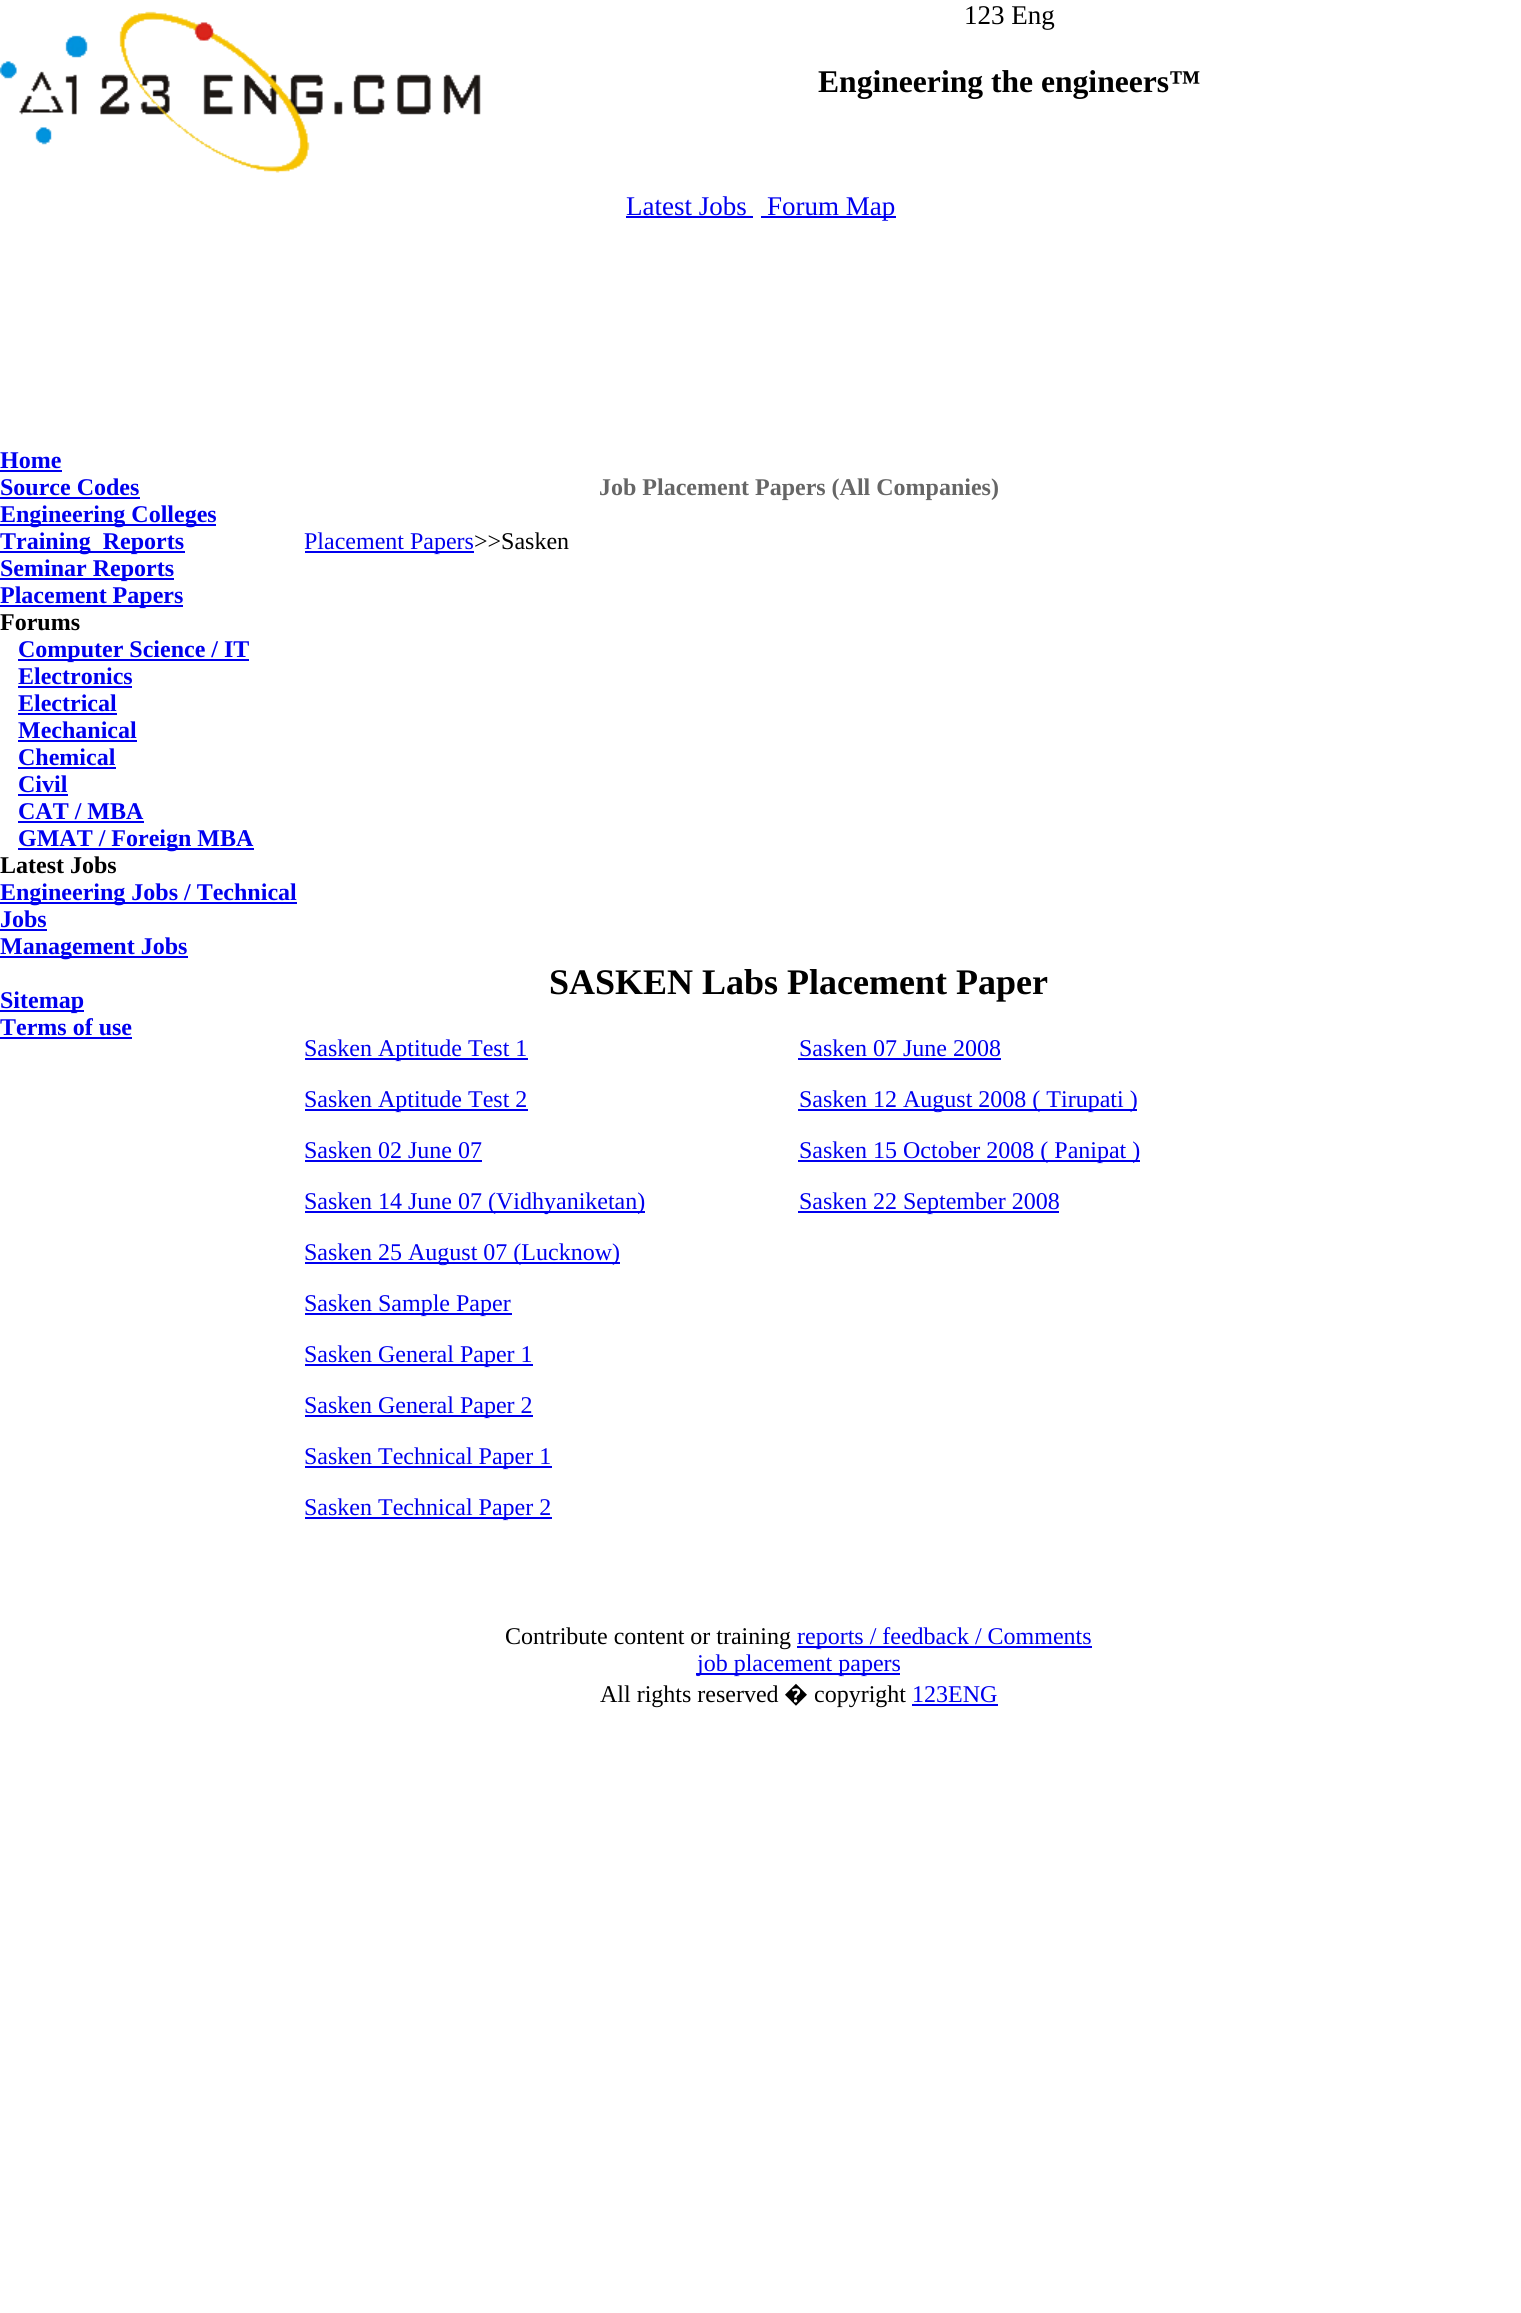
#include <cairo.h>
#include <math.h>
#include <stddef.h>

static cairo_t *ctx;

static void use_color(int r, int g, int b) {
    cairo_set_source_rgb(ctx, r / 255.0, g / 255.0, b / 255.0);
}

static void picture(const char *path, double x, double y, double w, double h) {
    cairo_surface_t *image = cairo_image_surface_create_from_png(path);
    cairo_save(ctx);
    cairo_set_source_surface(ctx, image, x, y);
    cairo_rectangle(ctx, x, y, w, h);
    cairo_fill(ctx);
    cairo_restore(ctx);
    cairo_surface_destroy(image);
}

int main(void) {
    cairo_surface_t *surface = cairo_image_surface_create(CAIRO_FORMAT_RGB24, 1521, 2313);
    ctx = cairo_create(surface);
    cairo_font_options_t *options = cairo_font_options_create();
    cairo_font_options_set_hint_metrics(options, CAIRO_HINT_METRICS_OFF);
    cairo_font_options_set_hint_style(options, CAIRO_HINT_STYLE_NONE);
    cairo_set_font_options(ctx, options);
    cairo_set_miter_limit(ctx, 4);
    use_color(255, 255, 255);
    cairo_paint(ctx);
    picture("img1.png", 0, 11, 481, 162);
    cairo_select_font_face(ctx, "Liberation Serif", CAIRO_FONT_SLANT_NORMAL, CAIRO_FONT_WEIGHT_NORMAL);
    cairo_set_font_size(ctx, 27);
    use_color(0, 0, 0);
    cairo_move_to(ctx, 964, 24);
    cairo_show_text(ctx, "123 Eng");
    cairo_select_font_face(ctx, "Liberation Serif", CAIRO_FONT_SLANT_NORMAL, CAIRO_FONT_WEIGHT_BOLD);
    cairo_set_font_size(ctx, 31.6);
    cairo_move_to(ctx, 818, 92);
    cairo_show_text(ctx, "Engineering the engineers™");
    cairo_select_font_face(ctx, "Liberation Serif", CAIRO_FONT_SLANT_NORMAL, CAIRO_FONT_WEIGHT_NORMAL);
    cairo_set_font_size(ctx, 27);
    use_color(0, 0, 238);
    cairo_move_to(ctx, 626, 215);
    cairo_show_text(ctx, "Latest Jobs");
    cairo_rectangle(ctx, 626, 216, 127, 2);
    cairo_fill(ctx);
    cairo_rectangle(ctx, 761, 216, 135, 2);
    cairo_fill(ctx);
    cairo_move_to(ctx, 767, 215);
    cairo_show_text(ctx, "Forum Map");
    cairo_select_font_face(ctx, "Liberation Serif", CAIRO_FONT_SLANT_NORMAL, CAIRO_FONT_WEIGHT_BOLD);
    cairo_set_font_size(ctx, 24);
    cairo_move_to(ctx, 0, 468);
    cairo_show_text(ctx, "Home");
    cairo_rectangle(ctx, 0, 470, 62, 2);
    cairo_fill(ctx);
    cairo_move_to(ctx, 0, 495);
    cairo_show_text(ctx, "Source Codes");
    cairo_rectangle(ctx, 0, 497, 140, 2);
    cairo_fill(ctx);
    cairo_rectangle(ctx, 0, 524, 216, 2);
    cairo_fill(ctx);
    cairo_move_to(ctx, 0, 522);
    cairo_show_text(ctx, "Engineering Colleges");
    cairo_rectangle(ctx, 0, 551, 185, 2);
    cairo_fill(ctx);
    cairo_move_to(ctx, 0, 549);
    cairo_show_text(ctx, "Training  Reports");
    cairo_rectangle(ctx, 0, 578, 174, 2);
    cairo_fill(ctx);
    cairo_move_to(ctx, 0, 576);
    cairo_show_text(ctx, "Seminar Reports");
    cairo_rectangle(ctx, 0, 605, 183, 2);
    cairo_fill(ctx);
    cairo_move_to(ctx, 0, 603);
    cairo_show_text(ctx, "Placement Papers");
    use_color(0, 0, 0);
    cairo_move_to(ctx, 0, 630);
    cairo_show_text(ctx, "Forums");
    use_color(0, 0, 238);
    cairo_rectangle(ctx, 18, 659, 231, 2);
    cairo_fill(ctx);
    cairo_move_to(ctx, 18, 657);
    cairo_show_text(ctx, "Computer Science / IT");
    cairo_move_to(ctx, 18, 684);
    cairo_show_text(ctx, "Electronics");
    cairo_rectangle(ctx, 18, 686, 114, 2);
    cairo_fill(ctx);
    cairo_move_to(ctx, 18, 711);
    cairo_show_text(ctx, "Electrical");
    cairo_rectangle(ctx, 18, 713, 99, 2);
    cairo_fill(ctx);
    cairo_move_to(ctx, 18, 738);
    cairo_show_text(ctx, "Mechanical");
    cairo_rectangle(ctx, 18, 740, 119, 2);
    cairo_fill(ctx);
    cairo_move_to(ctx, 18, 765);
    cairo_show_text(ctx, "Chemical");
    cairo_rectangle(ctx, 18, 767, 98, 2);
    cairo_fill(ctx);
    cairo_move_to(ctx, 18, 792);
    cairo_show_text(ctx, "Civil");
    cairo_rectangle(ctx, 18, 794, 50, 2);
    cairo_fill(ctx);
    cairo_move_to(ctx, 18, 819);
    cairo_show_text(ctx, "CAT / MBA");
    cairo_rectangle(ctx, 18, 821, 126, 2);
    cairo_fill(ctx);
    cairo_rectangle(ctx, 18, 848, 236, 2);
    cairo_fill(ctx);
    cairo_move_to(ctx, 18, 846);
    cairo_show_text(ctx, "GMAT / Foreign MBA");
    use_color(0, 0, 0);
    cairo_move_to(ctx, 0, 873);
    cairo_show_text(ctx, "Latest Jobs");
    use_color(0, 0, 238);
    cairo_rectangle(ctx, 0, 902, 297, 2);
    cairo_fill(ctx);
    cairo_move_to(ctx, 0, 900);
    cairo_show_text(ctx, "Engineering Jobs / Technical");
    cairo_move_to(ctx, 0, 927);
    cairo_show_text(ctx, "Jobs");
    cairo_rectangle(ctx, 0, 929, 47, 2);
    cairo_fill(ctx);
    cairo_rectangle(ctx, 0, 956, 188, 2);
    cairo_fill(ctx);
    cairo_move_to(ctx, 0, 954);
    cairo_show_text(ctx, "Management Jobs");
    cairo_rectangle(ctx, 0, 1010, 84, 2);
    cairo_fill(ctx);
    cairo_move_to(ctx, 0, 1008);
    cairo_show_text(ctx, "Sitemap");
    cairo_move_to(ctx, 0, 1035);
    cairo_show_text(ctx, "Terms of use");
    cairo_rectangle(ctx, 0, 1037, 132, 2);
    cairo_fill(ctx);
    use_color(102, 102, 102);
    cairo_move_to(ctx, 599, 495);
    cairo_show_text(ctx, "Job Placement Papers (All Companies)");
    use_color(0, 0, 238);
    cairo_rectangle(ctx, 305, 551, 169, 2);
    cairo_fill(ctx);
    cairo_select_font_face(ctx, "Liberation Serif", CAIRO_FONT_SLANT_NORMAL, CAIRO_FONT_WEIGHT_NORMAL);
    cairo_move_to(ctx, 304, 549);
    cairo_show_text(ctx, "Placement Papers");
    use_color(0, 0, 0);
    cairo_move_to(ctx, 474, 549);
    cairo_show_text(ctx, ">>Sasken");
    cairo_select_font_face(ctx, "Liberation Serif", CAIRO_FONT_SLANT_NORMAL, CAIRO_FONT_WEIGHT_BOLD);
    cairo_set_font_size(ctx, 36);
    cairo_move_to(ctx, 549, 994);
    cairo_show_text(ctx, "SASKEN Labs Placement Paper");
    use_color(0, 0, 238);
    cairo_rectangle(ctx, 305, 1058, 223, 2);
    cairo_fill(ctx);
    cairo_select_font_face(ctx, "Liberation Serif", CAIRO_FONT_SLANT_NORMAL, CAIRO_FONT_WEIGHT_NORMAL);
    cairo_set_font_size(ctx, 24);
    cairo_move_to(ctx, 304, 1056);
    cairo_show_text(ctx, "Sasken Aptitude Test 1");
    cairo_rectangle(ctx, 305, 1109, 223, 2);
    cairo_fill(ctx);
    cairo_move_to(ctx, 304, 1107);
    cairo_show_text(ctx, "Sasken Aptitude Test 2");
    cairo_move_to(ctx, 304, 1158);
    cairo_show_text(ctx, "Sasken 02 June 07");
    cairo_rectangle(ctx, 305, 1160, 177, 2);
    cairo_fill(ctx);
    cairo_rectangle(ctx, 305, 1211, 340, 2);
    cairo_fill(ctx);
    cairo_move_to(ctx, 304, 1209);
    cairo_show_text(ctx, "Sasken 14 June 07 (Vidhyaniketan)");
    cairo_rectangle(ctx, 305, 1262, 315, 2);
    cairo_fill(ctx);
    cairo_move_to(ctx, 304, 1260);
    cairo_show_text(ctx, "Sasken 25 August 07 (Lucknow)");
    cairo_rectangle(ctx, 305, 1313, 207, 2);
    cairo_fill(ctx);
    cairo_move_to(ctx, 304, 1311);
    cairo_show_text(ctx, "Sasken Sample Paper");
    cairo_rectangle(ctx, 305, 1364, 228, 2);
    cairo_fill(ctx);
    cairo_move_to(ctx, 304, 1362);
    cairo_show_text(ctx, "Sasken General Paper 1");
    cairo_rectangle(ctx, 305, 1415, 228, 2);
    cairo_fill(ctx);
    cairo_move_to(ctx, 304, 1413);
    cairo_show_text(ctx, "Sasken General Paper 2");
    cairo_rectangle(ctx, 305, 1466, 247, 2);
    cairo_fill(ctx);
    cairo_move_to(ctx, 304, 1464);
    cairo_show_text(ctx, "Sasken Technical Paper 1");
    cairo_rectangle(ctx, 305, 1517, 247, 2);
    cairo_fill(ctx);
    cairo_move_to(ctx, 304, 1515);
    cairo_show_text(ctx, "Sasken Technical Paper 2");
    cairo_move_to(ctx, 799, 1056);
    cairo_show_text(ctx, "Sasken 07 June 2008");
    cairo_rectangle(ctx, 798, 1058, 203, 2);
    cairo_fill(ctx);
    cairo_rectangle(ctx, 798, 1109, 339, 2);
    cairo_fill(ctx);
    cairo_move_to(ctx, 799, 1107);
    cairo_show_text(ctx, "Sasken 12 August 2008 ( Tirupati )");
    cairo_rectangle(ctx, 798, 1160, 342, 2);
    cairo_fill(ctx);
    cairo_move_to(ctx, 799, 1158);
    cairo_show_text(ctx, "Sasken 15 October 2008 ( Panipat )");
    cairo_rectangle(ctx, 798, 1211, 261, 2);
    cairo_fill(ctx);
    cairo_move_to(ctx, 799, 1209);
    cairo_show_text(ctx, "Sasken 22 September 2008");
    use_color(0, 0, 0);
    cairo_move_to(ctx, 505, 1644);
    cairo_show_text(ctx, "Contribute content or training");
    use_color(0, 0, 238);
    cairo_rectangle(ctx, 797, 1646, 295, 2);
    cairo_fill(ctx);
    cairo_move_to(ctx, 797, 1644);
    cairo_show_text(ctx, "reports / feedback / Comments");
    cairo_rectangle(ctx, 696, 1673, 204, 2);
    cairo_fill(ctx);
    cairo_move_to(ctx, 697, 1671);
    cairo_show_text(ctx, "job placement papers");
    use_color(0, 0, 0);
    cairo_move_to(ctx, 600, 1702);
    cairo_show_text(ctx, "All rights reserved");
    cairo_select_font_face(ctx, "Noto Sans", CAIRO_FONT_SLANT_NORMAL, CAIRO_FONT_WEIGHT_NORMAL);
    cairo_move_to(ctx, 784, 1702);
    cairo_show_text(ctx, "�");
    cairo_select_font_face(ctx, "Liberation Serif", CAIRO_FONT_SLANT_NORMAL, CAIRO_FONT_WEIGHT_NORMAL);
    cairo_move_to(ctx, 814, 1702);
    cairo_show_text(ctx, "copyright");
    use_color(0, 0, 238);
    cairo_move_to(ctx, 912, 1702);
    cairo_show_text(ctx, "123ENG");
    cairo_rectangle(ctx, 912, 1704, 86, 2);
    cairo_fill(ctx);
    cairo_surface_write_to_png(surface, "result.png");
    cairo_font_options_destroy(options);
    cairo_destroy(ctx);
    cairo_surface_destroy(surface);
    return 0;
}
